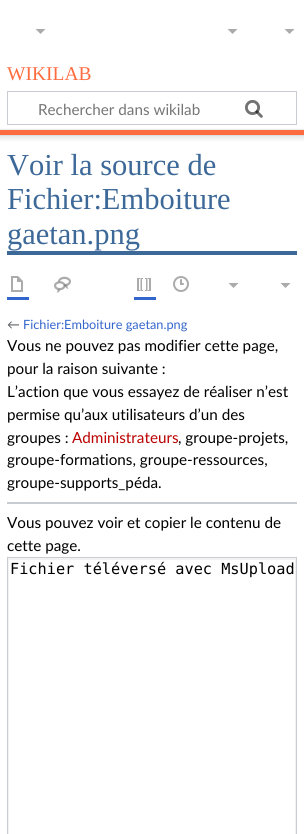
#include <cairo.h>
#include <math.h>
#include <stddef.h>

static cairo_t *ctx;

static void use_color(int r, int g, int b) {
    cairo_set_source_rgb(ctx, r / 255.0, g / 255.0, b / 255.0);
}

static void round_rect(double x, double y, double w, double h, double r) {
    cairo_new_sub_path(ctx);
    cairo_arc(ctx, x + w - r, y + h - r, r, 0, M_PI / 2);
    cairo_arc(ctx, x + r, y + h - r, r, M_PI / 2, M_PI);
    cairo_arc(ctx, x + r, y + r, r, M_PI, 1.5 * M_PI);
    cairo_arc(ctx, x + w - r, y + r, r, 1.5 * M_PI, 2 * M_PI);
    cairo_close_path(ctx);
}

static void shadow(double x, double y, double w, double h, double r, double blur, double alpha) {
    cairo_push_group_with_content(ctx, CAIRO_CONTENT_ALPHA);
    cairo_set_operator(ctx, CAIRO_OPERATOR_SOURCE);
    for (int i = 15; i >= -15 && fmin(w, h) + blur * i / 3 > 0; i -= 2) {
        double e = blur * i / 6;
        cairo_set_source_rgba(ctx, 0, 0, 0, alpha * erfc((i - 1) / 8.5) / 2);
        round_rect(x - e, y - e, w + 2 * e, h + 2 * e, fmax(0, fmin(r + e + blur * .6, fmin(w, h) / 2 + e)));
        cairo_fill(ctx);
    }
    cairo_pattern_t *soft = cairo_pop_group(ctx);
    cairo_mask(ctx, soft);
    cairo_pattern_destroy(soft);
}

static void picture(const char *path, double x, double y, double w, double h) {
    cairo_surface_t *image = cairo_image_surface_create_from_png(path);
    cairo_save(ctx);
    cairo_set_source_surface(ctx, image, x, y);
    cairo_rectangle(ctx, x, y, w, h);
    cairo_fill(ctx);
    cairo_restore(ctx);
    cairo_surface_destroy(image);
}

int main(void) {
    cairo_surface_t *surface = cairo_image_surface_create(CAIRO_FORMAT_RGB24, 304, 834);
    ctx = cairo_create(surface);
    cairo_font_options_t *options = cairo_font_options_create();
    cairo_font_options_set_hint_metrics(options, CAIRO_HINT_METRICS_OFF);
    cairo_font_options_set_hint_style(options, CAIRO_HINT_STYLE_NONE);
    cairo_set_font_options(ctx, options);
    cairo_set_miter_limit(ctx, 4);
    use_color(255, 255, 255);
    cairo_paint(ctx);
    use_color(171, 171, 171);
    cairo_new_path(ctx);
    cairo_move_to(ctx, 294.5, 29);
    cairo_line_to(ctx, 289.5, 34);
    cairo_line_to(ctx, 284.5, 29);
    cairo_close_path(ctx);
    cairo_fill(ctx);
    cairo_select_font_face(ctx, "Liberation Serif", CAIRO_FONT_SLANT_NORMAL, CAIRO_FONT_WEIGHT_NORMAL);
    cairo_set_font_size(ctx, 19.5);
    use_color(255, 107, 64);
    cairo_move_to(ctx, 7, 80);
    cairo_show_text(ctx, "WIKILAB");
    cairo_rectangle(ctx, 7.5, 91.5, 289, 33);
    use_color(200, 204, 209);
    cairo_set_line_width(ctx, 1);
    cairo_stroke(ctx);
    picture("img1.png", 245, 100, 18, 18);
    cairo_select_font_face(ctx, "Lato", CAIRO_FONT_SLANT_NORMAL, CAIRO_FONT_WEIGHT_NORMAL);
    cairo_set_font_size(ctx, 15.25);
    use_color(117, 117, 117);
    cairo_move_to(ctx, 38, 115);
    cairo_show_text(ctx, "Rechercher dans wikilab");
    picture("img2.png", 245, 100, 18, 18);
    use_color(0, 0, 0);
    shadow(0, 130, 304, 5, 0, 1, 0.2);
    shadow(-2, 131, 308, 9, 0, 1.5, 0.07);
    use_color(255, 107, 64);
    cairo_rectangle(ctx, 0, 130, 304, 5);
    cairo_fill(ctx);
    use_color(171, 171, 171);
    cairo_new_path(ctx);
    cairo_move_to(ctx, 45.5, 29);
    cairo_line_to(ctx, 40.5, 34);
    cairo_line_to(ctx, 35.5, 29);
    cairo_close_path(ctx);
    cairo_fill(ctx);
    cairo_new_path(ctx);
    cairo_move_to(ctx, 237.5, 29);
    cairo_line_to(ctx, 232.5, 34);
    cairo_line_to(ctx, 227.5, 29);
    cairo_close_path(ctx);
    cairo_fill(ctx);
    use_color(61, 105, 153);
    cairo_rectangle(ctx, 7, 251, 290, 4);
    cairo_fill(ctx);
    cairo_select_font_face(ctx, "Liberation Serif", CAIRO_FONT_SLANT_NORMAL, CAIRO_FONT_WEIGHT_NORMAL);
    cairo_set_font_size(ctx, 30.5);
    cairo_move_to(ctx, 7, 175);
    cairo_show_text(ctx, "Voir la source de");
    cairo_move_to(ctx, 7, 209);
    cairo_show_text(ctx, "Fichier:Emboiture");
    cairo_move_to(ctx, 7, 244);
    cairo_show_text(ctx, "gaetan.png");
    use_color(51, 102, 204);
    cairo_rectangle(ctx, 7, 297, 22, 3);
    cairo_fill(ctx);
    picture("img3.png", 11, 276, 12, 16);
    picture("img4.png", 54, 276, 17, 17);
    cairo_rectangle(ctx, 134, 297, 22, 3);
    cairo_fill(ctx);
    picture("img5.png", 137, 278, 14, 13);
    picture("img6.png", 173, 276, 16, 16);
    use_color(171, 171, 171);
    cairo_new_path(ctx);
    cairo_move_to(ctx, 238.5, 283);
    cairo_line_to(ctx, 233.5, 288);
    cairo_line_to(ctx, 228.5, 283);
    cairo_close_path(ctx);
    cairo_move_to(ctx, 290.5, 283);
    cairo_line_to(ctx, 285.5, 288);
    cairo_line_to(ctx, 280.5, 283);
    cairo_close_path(ctx);
    cairo_fill(ctx);
    cairo_select_font_face(ctx, "Lato", CAIRO_FONT_SLANT_NORMAL, CAIRO_FONT_WEIGHT_NORMAL);
    cairo_set_font_size(ctx, 12.75);
    use_color(84, 89, 93);
    cairo_move_to(ctx, 7, 329);
    cairo_show_text(ctx, "←");
    use_color(51, 102, 204);
    cairo_move_to(ctx, 23, 329);
    cairo_show_text(ctx, "Fichier:Emboiture gaetan.png");
    cairo_set_font_size(ctx, 15.25);
    use_color(0, 0, 0);
    cairo_move_to(ctx, 7, 351);
    cairo_show_text(ctx, "Vous ne pouvez pas modifier cette page,");
    cairo_move_to(ctx, 7, 374);
    cairo_show_text(ctx, "pour la raison suivante :");
    cairo_move_to(ctx, 7, 397);
    cairo_show_text(ctx, "L’action que vous essayez de réaliser n’est");
    cairo_move_to(ctx, 7, 420);
    cairo_show_text(ctx, "permise qu’aux utilisateurs d’un des");
    cairo_move_to(ctx, 7, 443);
    cairo_show_text(ctx, "groupes :");
    use_color(186, 0, 0);
    cairo_move_to(ctx, 72, 443);
    cairo_show_text(ctx, "Administrateurs");
    use_color(0, 0, 0);
    cairo_move_to(ctx, 178, 443);
    cairo_show_text(ctx, ", groupe-projets,");
    cairo_move_to(ctx, 7, 465);
    cairo_show_text(ctx, "groupe-formations, groupe-ressources,");
    cairo_move_to(ctx, 7, 488);
    cairo_show_text(ctx, "groupe-supports_péda.");
    use_color(200, 204, 209);
    cairo_rectangle(ctx, 7, 502, 290, 2);
    cairo_fill(ctx);
    use_color(0, 0, 0);
    cairo_move_to(ctx, 7, 528);
    cairo_show_text(ctx, "Vous pouvez voir et copier le contenu de");
    cairo_move_to(ctx, 7, 551);
    cairo_show_text(ctx, "cette page.");
    cairo_save(ctx);
    cairo_rectangle(ctx, 8, 558, 288, 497);
    cairo_clip(ctx);
    use_color(242, 242, 242);
    cairo_set_fill_rule(ctx, CAIRO_FILL_RULE_EVEN_ODD);
    cairo_new_path(ctx);
    cairo_move_to(ctx, -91, 459);
    cairo_line_to(ctx, 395, 459);
    cairo_line_to(ctx, 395, 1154);
    cairo_line_to(ctx, -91, 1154);
    cairo_close_path(ctx);
    cairo_move_to(ctx, 9, 560);
    cairo_line_to(ctx, 295, 560);
    cairo_line_to(ctx, 295, 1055);
    cairo_line_to(ctx, 9, 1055);
    cairo_close_path(ctx);
    cairo_fill(ctx);
    cairo_restore(ctx);
    cairo_rectangle(ctx, 7.5, 557.5, 289, 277);
    use_color(200, 204, 209);
    cairo_stroke(ctx);
    cairo_select_font_face(ctx, "DejaVu Sans Mono", CAIRO_FONT_SLANT_NORMAL, CAIRO_FONT_WEIGHT_NORMAL);
    use_color(0, 0, 0);
    cairo_move_to(ctx, 10, 574);
    cairo_show_text(ctx, "Fichier téléversé avec MsUpload");
    cairo_surface_write_to_png(surface, "result.png");
    cairo_font_options_destroy(options);
    cairo_destroy(ctx);
    cairo_surface_destroy(surface);
    return 0;
}
